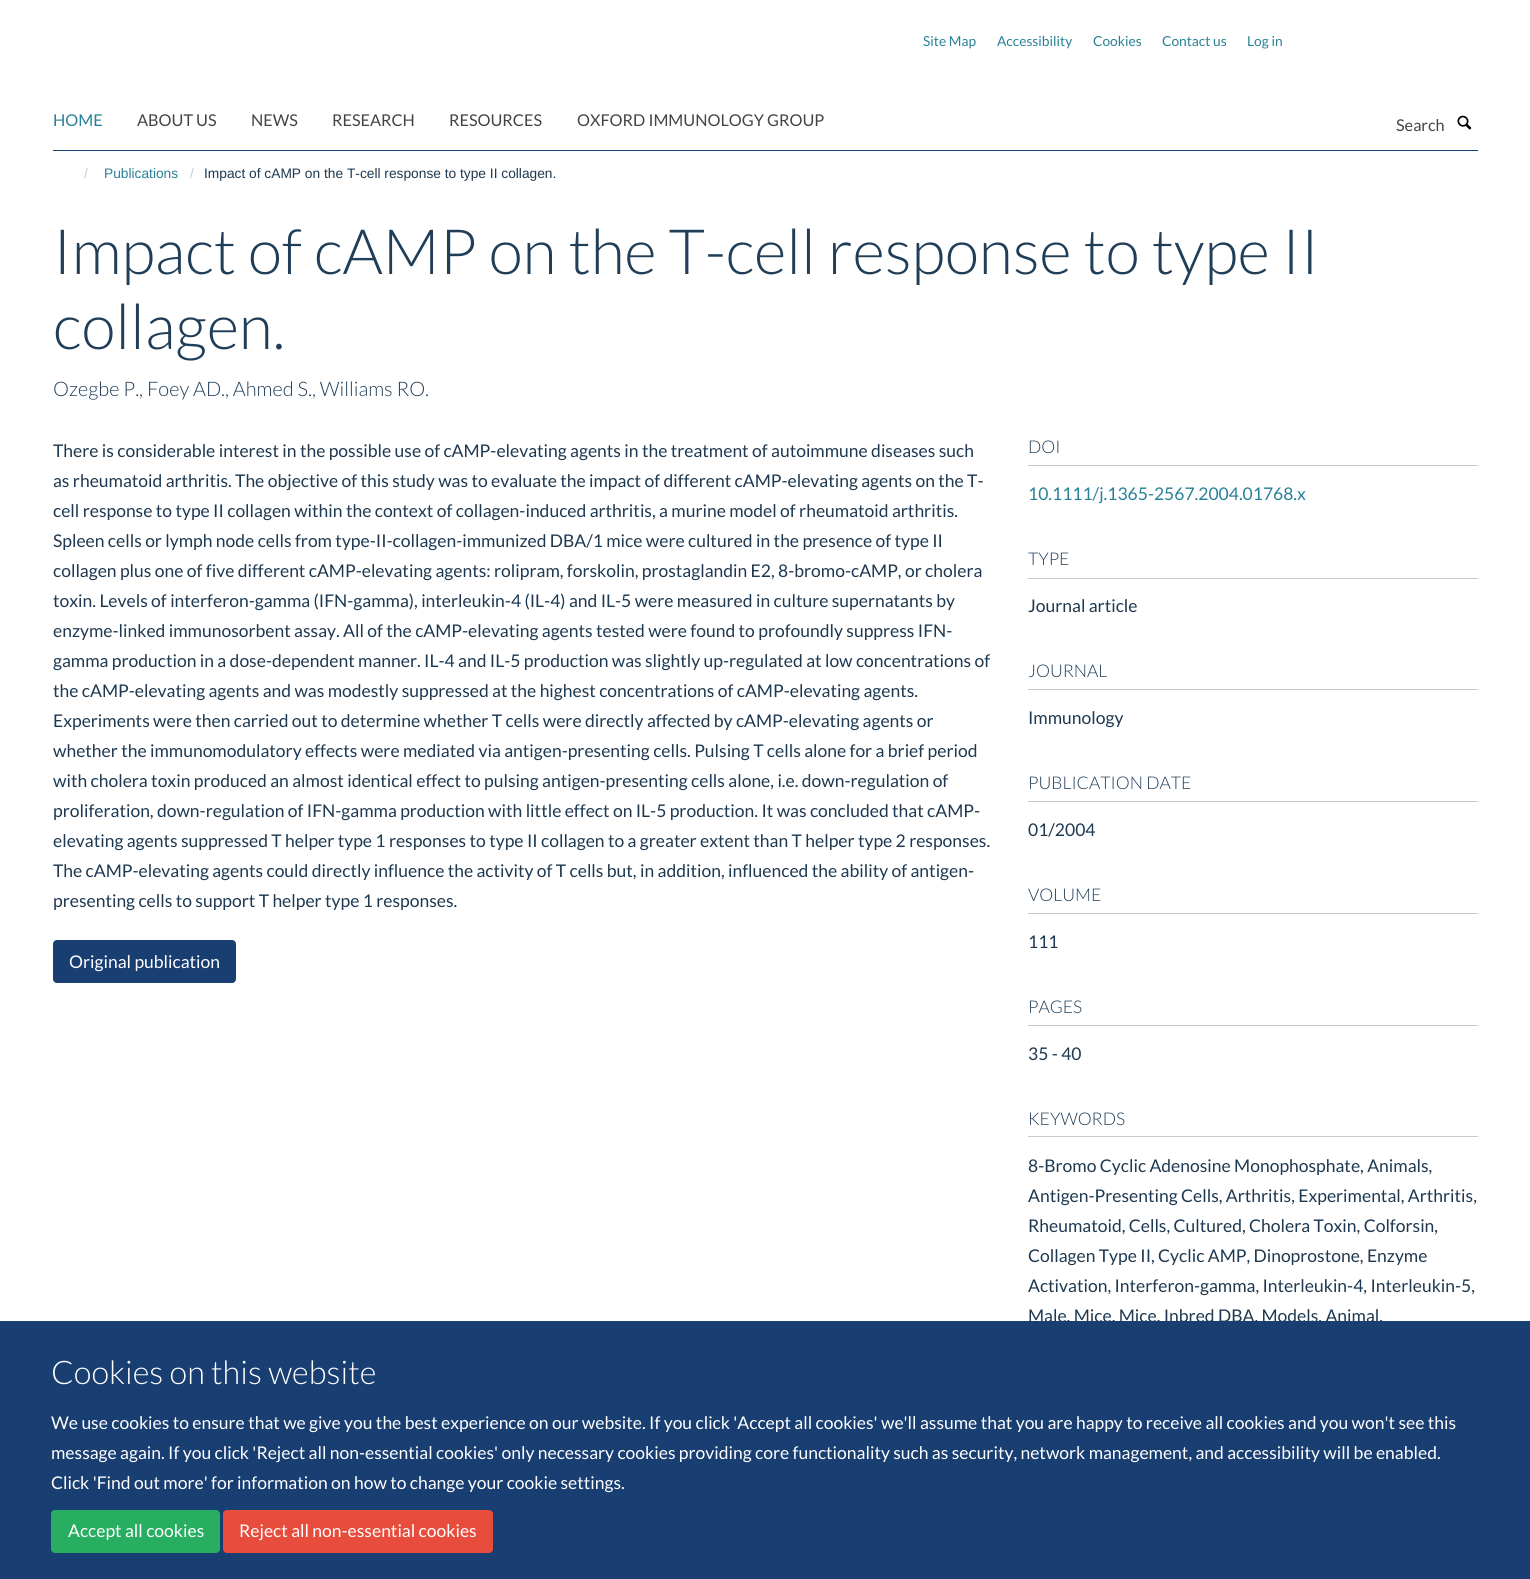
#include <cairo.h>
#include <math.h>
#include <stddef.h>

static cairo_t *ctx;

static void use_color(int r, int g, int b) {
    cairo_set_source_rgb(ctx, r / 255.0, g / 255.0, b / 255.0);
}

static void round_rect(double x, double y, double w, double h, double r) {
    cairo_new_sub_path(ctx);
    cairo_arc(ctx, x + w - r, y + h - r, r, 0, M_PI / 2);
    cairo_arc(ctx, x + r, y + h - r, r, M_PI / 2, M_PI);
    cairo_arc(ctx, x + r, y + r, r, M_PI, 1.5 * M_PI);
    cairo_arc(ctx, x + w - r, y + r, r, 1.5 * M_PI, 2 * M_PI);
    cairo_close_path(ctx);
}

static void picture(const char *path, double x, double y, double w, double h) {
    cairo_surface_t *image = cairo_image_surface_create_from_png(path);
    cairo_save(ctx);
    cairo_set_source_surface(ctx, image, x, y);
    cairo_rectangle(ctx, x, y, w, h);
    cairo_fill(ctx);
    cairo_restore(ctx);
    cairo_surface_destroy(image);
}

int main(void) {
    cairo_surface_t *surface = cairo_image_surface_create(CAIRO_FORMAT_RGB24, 1530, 1579);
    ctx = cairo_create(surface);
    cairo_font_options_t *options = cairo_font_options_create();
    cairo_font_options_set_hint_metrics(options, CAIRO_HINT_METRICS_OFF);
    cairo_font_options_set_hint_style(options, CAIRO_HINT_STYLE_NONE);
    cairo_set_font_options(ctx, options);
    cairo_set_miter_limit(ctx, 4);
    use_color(255, 255, 255);
    cairo_paint(ctx);
    cairo_select_font_face(ctx, "Lato", CAIRO_FONT_SLANT_NORMAL, CAIRO_FONT_WEIGHT_NORMAL);
    cairo_set_font_size(ctx, 13.75);
    use_color(41, 128, 150);
    cairo_move_to(ctx, 923, 46);
    cairo_show_text(ctx, "Site Map");
    cairo_move_to(ctx, 997, 46);
    cairo_show_text(ctx, "Accessibility");
    cairo_move_to(ctx, 1093, 46);
    cairo_show_text(ctx, "Cookies");
    cairo_move_to(ctx, 1162, 46);
    cairo_show_text(ctx, "Contact us");
    cairo_move_to(ctx, 1247, 46);
    cairo_show_text(ctx, "Log in");
    use_color(25, 62, 114);
    cairo_rectangle(ctx, 53, 150, 1425, 1);
    cairo_fill(ctx);
    cairo_set_font_size(ctx, 16.25);
    use_color(41, 128, 150);
    cairo_move_to(ctx, 53, 126);
    cairo_show_text(ctx, "HOME");
    use_color(68, 68, 68);
    cairo_move_to(ctx, 137, 126);
    cairo_show_text(ctx, "ABOUT US");
    cairo_move_to(ctx, 251, 126);
    cairo_show_text(ctx, "NEWS");
    cairo_move_to(ctx, 332, 126);
    cairo_show_text(ctx, "RESEARCH");
    cairo_move_to(ctx, 449, 126);
    cairo_show_text(ctx, "RESOURCES");
    cairo_move_to(ctx, 577, 126);
    cairo_show_text(ctx, "OXFORD IMMUNOLOGY GROUP");
    cairo_move_to(ctx, 1396, 131);
    cairo_show_text(ctx, "Search");
    picture("img1.png", 1457, 115, 15, 15);
    cairo_select_font_face(ctx, "Liberation Sans", CAIRO_FONT_SLANT_NORMAL, CAIRO_FONT_WEIGHT_NORMAL);
    cairo_set_font_size(ctx, 13.75);
    use_color(204, 204, 204);
    cairo_move_to(ctx, 84, 178);
    cairo_show_text(ctx, "/");
    use_color(41, 128, 150);
    cairo_move_to(ctx, 104, 178);
    cairo_show_text(ctx, "Publications");
    use_color(204, 204, 204);
    cairo_move_to(ctx, 190, 178);
    cairo_show_text(ctx, "/");
    use_color(29, 56, 80);
    cairo_move_to(ctx, 204, 178);
    cairo_show_text(ctx, "Impact of cAMP on the T-cell response to type II collagen.");
    cairo_select_font_face(ctx, "Lato Light", CAIRO_FONT_SLANT_NORMAL, CAIRO_FONT_WEIGHT_NORMAL);
    cairo_set_font_size(ctx, 62.5);
    use_color(32, 62, 88);
    cairo_move_to(ctx, 53, 274);
    cairo_show_text(ctx, "Impact of cAMP on the T-cell response to type II");
    cairo_move_to(ctx, 53, 349);
    cairo_show_text(ctx, "collagen.");
    cairo_set_font_size(ctx, 20);
    cairo_move_to(ctx, 53, 396);
    cairo_show_text(ctx, "Ozegbe P., Foey AD., Ahmed S., Williams RO.");
    cairo_select_font_face(ctx, "Lato", CAIRO_FONT_SLANT_NORMAL, CAIRO_FONT_WEIGHT_NORMAL);
    cairo_set_font_size(ctx, 17.5);
    use_color(29, 56, 80);
    cairo_move_to(ctx, 53, 457);
    cairo_show_text(ctx, "There is considerable interest in the possible use of cAMP-elevating agents in the treatment of autoimmune diseases such");
    cairo_move_to(ctx, 53, 487);
    cairo_show_text(ctx, "as rheumatoid arthritis. The objective of this study was to evaluate the impact of different cAMP-elevating agents on the T-");
    cairo_move_to(ctx, 53, 517);
    cairo_show_text(ctx, "cell response to type II collagen within the context of collagen-induced arthritis, a murine model of rheumatoid arthritis.");
    cairo_move_to(ctx, 53, 547);
    cairo_show_text(ctx, "Spleen cells or lymph node cells from type-II-collagen-immunized DBA/1 mice were cultured in the presence of type II");
    cairo_move_to(ctx, 53, 577);
    cairo_show_text(ctx, "collagen plus one of five different cAMP-elevating agents: rolipram, forskolin, prostaglandin E2, 8-bromo-cAMP, or cholera");
    cairo_move_to(ctx, 53, 607);
    cairo_show_text(ctx, "toxin. Levels of interferon-gamma (IFN-gamma), interleukin-4 (IL-4) and IL-5 were measured in culture supernatants by");
    cairo_move_to(ctx, 53, 637);
    cairo_show_text(ctx, "enzyme-linked immunosorbent assay. All of the cAMP-elevating agents tested were found to profoundly suppress IFN-");
    cairo_move_to(ctx, 53, 667);
    cairo_show_text(ctx, "gamma production in a dose-dependent manner. IL-4 and IL-5 production was slightly up-regulated at low concentrations of");
    cairo_move_to(ctx, 53, 697);
    cairo_show_text(ctx, "the cAMP-elevating agents and was modestly suppressed at the highest concentrations of cAMP-elevating agents.");
    cairo_move_to(ctx, 53, 727);
    cairo_show_text(ctx, "Experiments were then carried out to determine whether T cells were directly affected by cAMP-elevating agents or");
    cairo_move_to(ctx, 53, 757);
    cairo_show_text(ctx, "whether the immunomodulatory effects were mediated via antigen-presenting cells. Pulsing T cells alone for a brief period");
    cairo_move_to(ctx, 53, 787);
    cairo_show_text(ctx, "with cholera toxin produced an almost identical effect to pulsing antigen-presenting cells alone, i.e. down-regulation of");
    cairo_move_to(ctx, 53, 817);
    cairo_show_text(ctx, "proliferation, down-regulation of IFN-gamma production with little effect on IL-5 production. It was concluded that cAMP-");
    cairo_move_to(ctx, 53, 847);
    cairo_show_text(ctx, "elevating agents suppressed T helper type 1 responses to type II collagen to a greater extent than T helper type 2 responses.");
    cairo_move_to(ctx, 53, 877);
    cairo_show_text(ctx, "The cAMP-elevating agents could directly influence the activity of T cells but, in addition, influenced the ability of antigen-");
    cairo_move_to(ctx, 53, 907);
    cairo_show_text(ctx, "presenting cells to support T helper type 1 responses.");
    use_color(25, 62, 114);
    round_rect(53.5, 940.5, 182, 42, 3.5);
    cairo_fill_preserve(ctx);
    cairo_set_line_width(ctx, 1);
    cairo_stroke(ctx);
    use_color(255, 255, 255);
    cairo_move_to(ctx, 69, 968);
    cairo_show_text(ctx, "Original publication");
    use_color(198, 202, 207);
    cairo_rectangle(ctx, 1028, 465, 450, 1);
    cairo_fill(ctx);
    cairo_select_font_face(ctx, "Lato Light", CAIRO_FONT_SLANT_NORMAL, CAIRO_FONT_WEIGHT_NORMAL);
    use_color(32, 62, 88);
    cairo_move_to(ctx, 1028, 453);
    cairo_show_text(ctx, "DOI");
    cairo_select_font_face(ctx, "Lato", CAIRO_FONT_SLANT_NORMAL, CAIRO_FONT_WEIGHT_NORMAL);
    use_color(41, 128, 150);
    cairo_move_to(ctx, 1028, 500);
    cairo_show_text(ctx, "10.1111/j.1365-2567.2004.01768.x");
    use_color(198, 202, 207);
    cairo_rectangle(ctx, 1028, 578, 450, 1);
    cairo_fill(ctx);
    cairo_select_font_face(ctx, "Lato Light", CAIRO_FONT_SLANT_NORMAL, CAIRO_FONT_WEIGHT_NORMAL);
    use_color(32, 62, 88);
    cairo_move_to(ctx, 1028, 565);
    cairo_show_text(ctx, "TYPE");
    cairo_select_font_face(ctx, "Lato", CAIRO_FONT_SLANT_NORMAL, CAIRO_FONT_WEIGHT_NORMAL);
    use_color(29, 56, 80);
    cairo_move_to(ctx, 1028, 612);
    cairo_show_text(ctx, "Journal article");
    use_color(198, 202, 207);
    cairo_rectangle(ctx, 1028, 689, 450, 1);
    cairo_fill(ctx);
    cairo_select_font_face(ctx, "Lato Light", CAIRO_FONT_SLANT_NORMAL, CAIRO_FONT_WEIGHT_NORMAL);
    use_color(32, 62, 88);
    cairo_move_to(ctx, 1028, 677);
    cairo_show_text(ctx, "JOURNAL");
    cairo_select_font_face(ctx, "Lato", CAIRO_FONT_SLANT_NORMAL, CAIRO_FONT_WEIGHT_NORMAL);
    use_color(29, 56, 80);
    cairo_move_to(ctx, 1028, 724);
    cairo_show_text(ctx, "Immunology");
    use_color(198, 202, 207);
    cairo_rectangle(ctx, 1028, 801, 450, 1);
    cairo_fill(ctx);
    cairo_select_font_face(ctx, "Lato Light", CAIRO_FONT_SLANT_NORMAL, CAIRO_FONT_WEIGHT_NORMAL);
    use_color(32, 62, 88);
    cairo_move_to(ctx, 1028, 789);
    cairo_show_text(ctx, "PUBLICATION DATE");
    cairo_select_font_face(ctx, "Lato", CAIRO_FONT_SLANT_NORMAL, CAIRO_FONT_WEIGHT_NORMAL);
    use_color(29, 56, 80);
    cairo_move_to(ctx, 1028, 836);
    cairo_show_text(ctx, "01/2004");
    use_color(198, 202, 207);
    cairo_rectangle(ctx, 1028, 913, 450, 1);
    cairo_fill(ctx);
    cairo_select_font_face(ctx, "Lato Light", CAIRO_FONT_SLANT_NORMAL, CAIRO_FONT_WEIGHT_NORMAL);
    use_color(32, 62, 88);
    cairo_move_to(ctx, 1028, 901);
    cairo_show_text(ctx, "VOLUME");
    cairo_select_font_face(ctx, "Lato", CAIRO_FONT_SLANT_NORMAL, CAIRO_FONT_WEIGHT_NORMAL);
    use_color(29, 56, 80);
    cairo_move_to(ctx, 1028, 948);
    cairo_show_text(ctx, "111");
    use_color(198, 202, 207);
    cairo_rectangle(ctx, 1028, 1025, 450, 1);
    cairo_fill(ctx);
    cairo_select_font_face(ctx, "Lato Light", CAIRO_FONT_SLANT_NORMAL, CAIRO_FONT_WEIGHT_NORMAL);
    use_color(32, 62, 88);
    cairo_move_to(ctx, 1028, 1013);
    cairo_show_text(ctx, "PAGES");
    cairo_select_font_face(ctx, "Lato", CAIRO_FONT_SLANT_NORMAL, CAIRO_FONT_WEIGHT_NORMAL);
    use_color(29, 56, 80);
    cairo_move_to(ctx, 1028, 1060);
    cairo_show_text(ctx, "35 - 40");
    use_color(198, 202, 207);
    cairo_rectangle(ctx, 1028, 1136, 450, 1);
    cairo_fill(ctx);
    cairo_select_font_face(ctx, "Lato Light", CAIRO_FONT_SLANT_NORMAL, CAIRO_FONT_WEIGHT_NORMAL);
    use_color(32, 62, 88);
    cairo_move_to(ctx, 1028, 1125);
    cairo_show_text(ctx, "KEYWORDS");
    cairo_select_font_face(ctx, "Lato", CAIRO_FONT_SLANT_NORMAL, CAIRO_FONT_WEIGHT_NORMAL);
    use_color(29, 56, 80);
    cairo_move_to(ctx, 1028, 1172);
    cairo_show_text(ctx, "8-Bromo Cyclic Adenosine Monophosphate, Animals,");
    cairo_move_to(ctx, 1028, 1202);
    cairo_show_text(ctx, "Antigen-Presenting Cells, Arthritis, Experimental, Arthritis,");
    cairo_move_to(ctx, 1028, 1232);
    cairo_show_text(ctx, "Rheumatoid, Cells, Cultured, Cholera Toxin, Colforsin,");
    cairo_move_to(ctx, 1028, 1262);
    cairo_show_text(ctx, "Collagen Type II, Cyclic AMP, Dinoprostone, Enzyme");
    cairo_move_to(ctx, 1028, 1292);
    cairo_show_text(ctx, "Activation, Interferon-gamma, Interleukin-4, Interleukin-5,");
    cairo_move_to(ctx, 1028, 1322);
    cairo_show_text(ctx, "Male, Mice, Mice, Inbred DBA, Models, Animal,");
    use_color(25, 62, 114);
    cairo_rectangle(ctx, 0, 1321, 1530, 258);
    cairo_fill(ctx);
    cairo_select_font_face(ctx, "Lato Light", CAIRO_FONT_SLANT_NORMAL, CAIRO_FONT_WEIGHT_NORMAL);
    cairo_set_font_size(ctx, 32.5);
    use_color(255, 255, 255);
    cairo_move_to(ctx, 51, 1384);
    cairo_show_text(ctx, "Cookies on this website");
    cairo_select_font_face(ctx, "Lato", CAIRO_FONT_SLANT_NORMAL, CAIRO_FONT_WEIGHT_NORMAL);
    cairo_set_font_size(ctx, 17.5);
    cairo_move_to(ctx, 51, 1429);
    cairo_show_text(ctx, "We use cookies to ensure that we give you the best experience on our website. If you click 'Accept all cookies' we'll assume that you are happy to receive all cookies and you won't see this");
    cairo_move_to(ctx, 51, 1459);
    cairo_show_text(ctx, "message again. If you click 'Reject all non-essential cookies' only necessary cookies providing core functionality such as security, network management, and accessibility will be enabled.");
    cairo_move_to(ctx, 51, 1489);
    cairo_show_text(ctx, "Click 'Find out more' for information on how to change your cookie settings.");
    use_color(39, 174, 96);
    round_rect(51.5, 1510.5, 168, 42, 3.5);
    cairo_fill_preserve(ctx);
    cairo_stroke(ctx);
    use_color(255, 255, 255);
    cairo_move_to(ctx, 68, 1537);
    cairo_show_text(ctx, "Accept all cookies");
    use_color(231, 76, 60);
    round_rect(223.5, 1510.5, 269, 42, 3.5);
    cairo_fill_preserve(ctx);
    cairo_stroke(ctx);
    use_color(255, 255, 255);
    cairo_move_to(ctx, 239, 1537);
    cairo_show_text(ctx, "Reject all non-essential cookies");
    cairo_surface_write_to_png(surface, "result.png");
    cairo_font_options_destroy(options);
    cairo_destroy(ctx);
    cairo_surface_destroy(surface);
    return 0;
}
